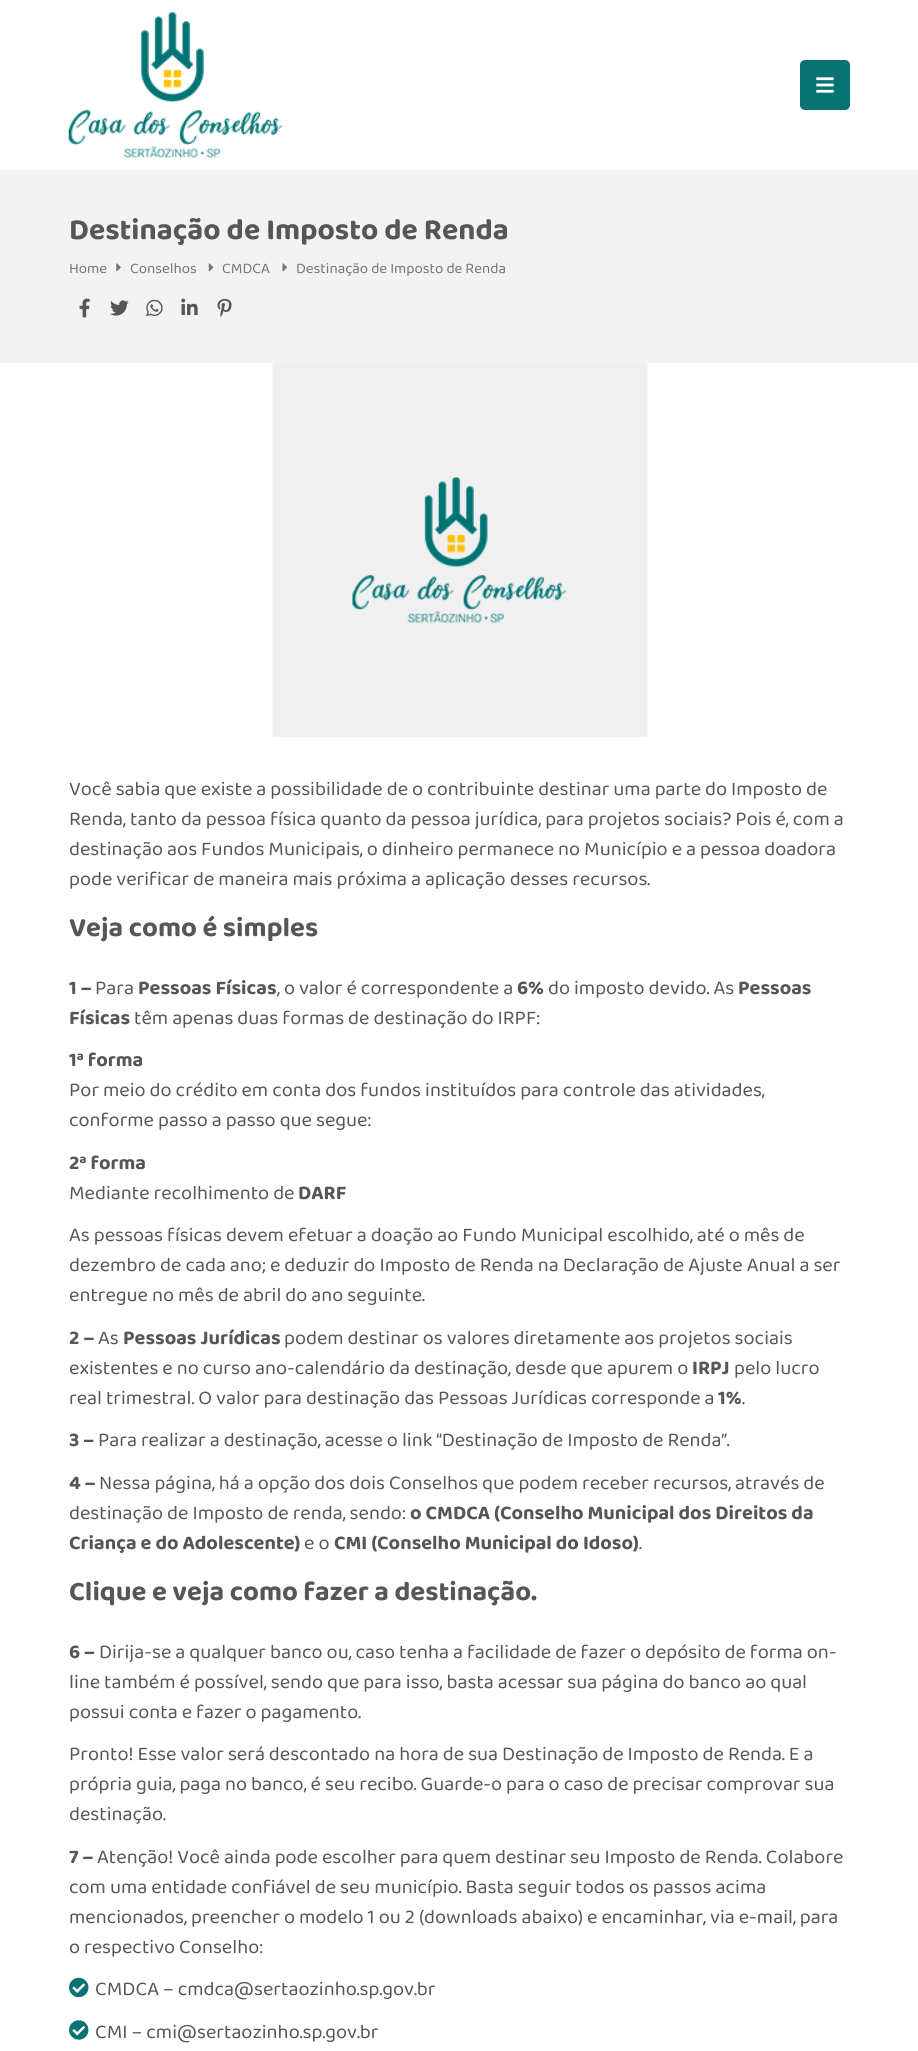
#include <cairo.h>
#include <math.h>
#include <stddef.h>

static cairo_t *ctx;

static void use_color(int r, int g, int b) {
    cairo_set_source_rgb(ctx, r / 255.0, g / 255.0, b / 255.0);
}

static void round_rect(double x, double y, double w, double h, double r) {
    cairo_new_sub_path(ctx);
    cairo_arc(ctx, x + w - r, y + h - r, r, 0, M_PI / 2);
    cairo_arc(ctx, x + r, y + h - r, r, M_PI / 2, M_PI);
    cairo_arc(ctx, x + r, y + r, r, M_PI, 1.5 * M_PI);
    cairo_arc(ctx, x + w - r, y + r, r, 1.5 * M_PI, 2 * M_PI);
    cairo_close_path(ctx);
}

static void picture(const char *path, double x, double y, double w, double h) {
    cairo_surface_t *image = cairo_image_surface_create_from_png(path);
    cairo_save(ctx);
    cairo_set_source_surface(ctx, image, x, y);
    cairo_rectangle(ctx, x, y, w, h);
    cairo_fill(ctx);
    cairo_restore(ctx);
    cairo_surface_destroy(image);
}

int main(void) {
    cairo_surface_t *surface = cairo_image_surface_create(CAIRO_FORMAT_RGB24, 918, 2051);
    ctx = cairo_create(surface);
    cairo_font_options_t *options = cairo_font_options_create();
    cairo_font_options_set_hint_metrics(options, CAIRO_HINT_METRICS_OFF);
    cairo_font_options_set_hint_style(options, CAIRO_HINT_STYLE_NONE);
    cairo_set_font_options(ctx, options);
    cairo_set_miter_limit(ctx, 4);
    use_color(255, 255, 255);
    cairo_paint(ctx);
    picture("img1.png", 68, 12, 215, 146);
    use_color(9, 114, 114);
    round_rect(800, 60, 50, 50, 5);
    cairo_fill(ctx);
    picture("img2.png", 816, 77, 18, 16);
    use_color(243, 243, 243);
    cairo_rectangle(ctx, 0, 170, 918, 193);
    cairo_fill(ctx);
    cairo_select_font_face(ctx, "Baloo Thambi 2", CAIRO_FONT_SLANT_NORMAL, CAIRO_FONT_WEIGHT_BOLD);
    cairo_set_font_size(ctx, 30);
    use_color(87, 86, 86);
    cairo_move_to(ctx, 69, 239);
    cairo_show_text(ctx, "Destinação de Imposto de Renda");
    cairo_select_font_face(ctx, "Baloo Thambi 2", CAIRO_FONT_SLANT_NORMAL, CAIRO_FONT_WEIGHT_NORMAL);
    cairo_set_font_size(ctx, 15);
    use_color(118, 117, 117);
    cairo_move_to(ctx, 69, 273);
    cairo_show_text(ctx, "Home");
    picture("img3.png", 116, 263, 5, 9);
    cairo_move_to(ctx, 130, 273);
    cairo_show_text(ctx, "Conselhos");
    picture("img4.png", 208, 263, 6, 9);
    cairo_move_to(ctx, 222, 273);
    cairo_show_text(ctx, "CMDCA");
    picture("img5.png", 282, 263, 5, 9);
    cairo_move_to(ctx, 296, 273);
    cairo_show_text(ctx, "Destinação de Imposto de Renda");
    picture("img6.png", 79, 298, 11, 20);
    picture("img7.png", 110, 300, 19, 16);
    picture("img8.png", 146, 299, 17, 18);
    picture("img9.png", 181, 298, 17, 17);
    picture("img10.png", 217, 298, 15, 19);
    picture("img11.png", 272, 363, 376, 375);
    cairo_set_font_size(ctx, 20);
    use_color(87, 86, 86);
    cairo_move_to(ctx, 69, 795);
    cairo_show_text(ctx, "Você sabia que existe a possibilidade de o contribuinte destinar uma parte do Imposto de");
    cairo_move_to(ctx, 69, 825);
    cairo_show_text(ctx, "Renda, tanto da pessoa física quanto da pessoa jurídica, para projetos sociais? Pois é, com a");
    cairo_move_to(ctx, 69, 855);
    cairo_show_text(ctx, "destinação aos Fundos Municipais, o dinheiro permanece no Município e a pessoa doadora");
    cairo_move_to(ctx, 69, 885);
    cairo_show_text(ctx, "pode verificar de maneira mais próxima a aplicação desses recursos.");
    cairo_select_font_face(ctx, "Baloo Thambi 2", CAIRO_FONT_SLANT_NORMAL, CAIRO_FONT_WEIGHT_BOLD);
    cairo_set_font_size(ctx, 27.5);
    cairo_move_to(ctx, 69, 936);
    cairo_show_text(ctx, "Veja como é simples");
    cairo_set_font_size(ctx, 20);
    cairo_move_to(ctx, 69, 994);
    cairo_show_text(ctx, "1 –");
    cairo_select_font_face(ctx, "Baloo Thambi 2", CAIRO_FONT_SLANT_NORMAL, CAIRO_FONT_WEIGHT_NORMAL);
    cairo_move_to(ctx, 95, 994);
    cairo_show_text(ctx, "Para");
    cairo_select_font_face(ctx, "Baloo Thambi 2", CAIRO_FONT_SLANT_NORMAL, CAIRO_FONT_WEIGHT_BOLD);
    cairo_move_to(ctx, 138, 994);
    cairo_show_text(ctx, "Pessoas Físicas");
    cairo_select_font_face(ctx, "Baloo Thambi 2", CAIRO_FONT_SLANT_NORMAL, CAIRO_FONT_WEIGHT_NORMAL);
    cairo_move_to(ctx, 277, 994);
    cairo_show_text(ctx, ", o valor é correspondente a");
    cairo_select_font_face(ctx, "Baloo Thambi 2", CAIRO_FONT_SLANT_NORMAL, CAIRO_FONT_WEIGHT_BOLD);
    cairo_move_to(ctx, 517, 994);
    cairo_show_text(ctx, "6%");
    cairo_select_font_face(ctx, "Baloo Thambi 2", CAIRO_FONT_SLANT_NORMAL, CAIRO_FONT_WEIGHT_NORMAL);
    cairo_move_to(ctx, 548, 994);
    cairo_show_text(ctx, "do imposto devido. As");
    cairo_select_font_face(ctx, "Baloo Thambi 2", CAIRO_FONT_SLANT_NORMAL, CAIRO_FONT_WEIGHT_BOLD);
    cairo_move_to(ctx, 738, 994);
    cairo_show_text(ctx, "Pessoas");
    cairo_move_to(ctx, 69, 1024);
    cairo_show_text(ctx, "Físicas");
    cairo_select_font_face(ctx, "Baloo Thambi 2", CAIRO_FONT_SLANT_NORMAL, CAIRO_FONT_WEIGHT_NORMAL);
    cairo_move_to(ctx, 134, 1024);
    cairo_show_text(ctx, "têm apenas duas formas de destinação do IRPF:");
    cairo_select_font_face(ctx, "Baloo Thambi 2", CAIRO_FONT_SLANT_NORMAL, CAIRO_FONT_WEIGHT_BOLD);
    cairo_move_to(ctx, 69, 1066);
    cairo_show_text(ctx, "1ª forma");
    cairo_select_font_face(ctx, "Baloo Thambi 2", CAIRO_FONT_SLANT_NORMAL, CAIRO_FONT_WEIGHT_NORMAL);
    cairo_move_to(ctx, 69, 1096);
    cairo_show_text(ctx, "Por meio do crédito em conta dos fundos instituídos para controle das atividades,");
    cairo_move_to(ctx, 69, 1126);
    cairo_show_text(ctx, "conforme passo a passo que segue:");
    cairo_select_font_face(ctx, "Baloo Thambi 2", CAIRO_FONT_SLANT_NORMAL, CAIRO_FONT_WEIGHT_BOLD);
    cairo_move_to(ctx, 69, 1169);
    cairo_show_text(ctx, "2ª forma");
    cairo_select_font_face(ctx, "Baloo Thambi 2", CAIRO_FONT_SLANT_NORMAL, CAIRO_FONT_WEIGHT_NORMAL);
    cairo_move_to(ctx, 69, 1199);
    cairo_show_text(ctx, "Mediante recolhimento de");
    cairo_select_font_face(ctx, "Baloo Thambi 2", CAIRO_FONT_SLANT_NORMAL, CAIRO_FONT_WEIGHT_BOLD);
    cairo_move_to(ctx, 298, 1199);
    cairo_show_text(ctx, "DARF");
    cairo_select_font_face(ctx, "Baloo Thambi 2", CAIRO_FONT_SLANT_NORMAL, CAIRO_FONT_WEIGHT_NORMAL);
    cairo_move_to(ctx, 69, 1241);
    cairo_show_text(ctx, "As pessoas físicas devem efetuar a doação ao Fundo Municipal escolhido, até o mês de");
    cairo_move_to(ctx, 69, 1271);
    cairo_show_text(ctx, "dezembro de cada ano; e deduzir do Imposto de Renda na Declaração de Ajuste Anual a ser");
    cairo_move_to(ctx, 69, 1301);
    cairo_show_text(ctx, "entregue no mês de abril do ano seguinte.");
    cairo_select_font_face(ctx, "Baloo Thambi 2", CAIRO_FONT_SLANT_NORMAL, CAIRO_FONT_WEIGHT_BOLD);
    cairo_move_to(ctx, 69, 1344);
    cairo_show_text(ctx, "2 –");
    cairo_select_font_face(ctx, "Baloo Thambi 2", CAIRO_FONT_SLANT_NORMAL, CAIRO_FONT_WEIGHT_NORMAL);
    cairo_move_to(ctx, 98, 1344);
    cairo_show_text(ctx, "As");
    cairo_select_font_face(ctx, "Baloo Thambi 2", CAIRO_FONT_SLANT_NORMAL, CAIRO_FONT_WEIGHT_BOLD);
    cairo_move_to(ctx, 123, 1344);
    cairo_show_text(ctx, "Pessoas Jurídicas");
    cairo_select_font_face(ctx, "Baloo Thambi 2", CAIRO_FONT_SLANT_NORMAL, CAIRO_FONT_WEIGHT_NORMAL);
    cairo_move_to(ctx, 284, 1344);
    cairo_show_text(ctx, "podem destinar os valores diretamente aos projetos sociais");
    cairo_move_to(ctx, 69, 1374);
    cairo_show_text(ctx, "existentes e no curso ano-calendário da destinação, desde que apurem o");
    cairo_select_font_face(ctx, "Baloo Thambi 2", CAIRO_FONT_SLANT_NORMAL, CAIRO_FONT_WEIGHT_BOLD);
    cairo_move_to(ctx, 692, 1374);
    cairo_show_text(ctx, "IRPJ");
    cairo_select_font_face(ctx, "Baloo Thambi 2", CAIRO_FONT_SLANT_NORMAL, CAIRO_FONT_WEIGHT_NORMAL);
    cairo_move_to(ctx, 734, 1374);
    cairo_show_text(ctx, "pelo lucro");
    cairo_move_to(ctx, 69, 1404);
    cairo_show_text(ctx, "real trimestral. O valor para destinação das Pessoas Jurídicas corresponde a");
    cairo_select_font_face(ctx, "Baloo Thambi 2", CAIRO_FONT_SLANT_NORMAL, CAIRO_FONT_WEIGHT_BOLD);
    cairo_move_to(ctx, 718, 1404);
    cairo_show_text(ctx, "1%");
    cairo_select_font_face(ctx, "Baloo Thambi 2", CAIRO_FONT_SLANT_NORMAL, CAIRO_FONT_WEIGHT_NORMAL);
    cairo_move_to(ctx, 742, 1404);
    cairo_show_text(ctx, ".");
    cairo_select_font_face(ctx, "Baloo Thambi 2", CAIRO_FONT_SLANT_NORMAL, CAIRO_FONT_WEIGHT_BOLD);
    cairo_move_to(ctx, 69, 1446);
    cairo_show_text(ctx, "3 –");
    cairo_select_font_face(ctx, "Baloo Thambi 2", CAIRO_FONT_SLANT_NORMAL, CAIRO_FONT_WEIGHT_NORMAL);
    cairo_move_to(ctx, 98, 1446);
    cairo_show_text(ctx, "Para realizar a destinação, acesse o link “Destinação de Imposto de Renda”.");
    cairo_select_font_face(ctx, "Baloo Thambi 2", CAIRO_FONT_SLANT_NORMAL, CAIRO_FONT_WEIGHT_BOLD);
    cairo_move_to(ctx, 69, 1489);
    cairo_show_text(ctx, "4 –");
    cairo_select_font_face(ctx, "Baloo Thambi 2", CAIRO_FONT_SLANT_NORMAL, CAIRO_FONT_WEIGHT_NORMAL);
    cairo_move_to(ctx, 99, 1489);
    cairo_show_text(ctx, "Nessa página, há a opção dos dois Conselhos que podem receber recursos, através de");
    cairo_move_to(ctx, 69, 1519);
    cairo_show_text(ctx, "destinação de Imposto de renda, sendo:");
    cairo_select_font_face(ctx, "Baloo Thambi 2", CAIRO_FONT_SLANT_NORMAL, CAIRO_FONT_WEIGHT_BOLD);
    cairo_move_to(ctx, 410, 1519);
    cairo_show_text(ctx, "o CMDCA (Conselho Municipal dos Direitos da");
    cairo_move_to(ctx, 69, 1549);
    cairo_show_text(ctx, "Criança e do Adolescente)");
    cairo_select_font_face(ctx, "Baloo Thambi 2", CAIRO_FONT_SLANT_NORMAL, CAIRO_FONT_WEIGHT_NORMAL);
    cairo_move_to(ctx, 304, 1549);
    cairo_show_text(ctx, "e o");
    cairo_select_font_face(ctx, "Baloo Thambi 2", CAIRO_FONT_SLANT_NORMAL, CAIRO_FONT_WEIGHT_BOLD);
    cairo_move_to(ctx, 334, 1549);
    cairo_show_text(ctx, "CMI (Conselho Municipal do Idoso)");
    cairo_select_font_face(ctx, "Baloo Thambi 2", CAIRO_FONT_SLANT_NORMAL, CAIRO_FONT_WEIGHT_NORMAL);
    cairo_move_to(ctx, 639, 1549);
    cairo_show_text(ctx, ".");
    cairo_select_font_face(ctx, "Baloo Thambi 2", CAIRO_FONT_SLANT_NORMAL, CAIRO_FONT_WEIGHT_BOLD);
    cairo_set_font_size(ctx, 27.5);
    cairo_move_to(ctx, 69, 1600);
    cairo_show_text(ctx, "Clique e veja como fazer a destinação.");
    cairo_set_font_size(ctx, 20);
    cairo_move_to(ctx, 69, 1658);
    cairo_show_text(ctx, "6 –");
    cairo_select_font_face(ctx, "Baloo Thambi 2", CAIRO_FONT_SLANT_NORMAL, CAIRO_FONT_WEIGHT_NORMAL);
    cairo_move_to(ctx, 99, 1658);
    cairo_show_text(ctx, "Dirija-se a qualquer banco ou, caso tenha a facilidade de fazer o depósito de forma on-");
    cairo_move_to(ctx, 69, 1688);
    cairo_show_text(ctx, "line também é possível, sendo que para isso, basta acessar sua página do banco ao qual");
    cairo_move_to(ctx, 69, 1718);
    cairo_show_text(ctx, "possui conta e fazer o pagamento.");
    cairo_move_to(ctx, 69, 1760);
    cairo_show_text(ctx, "Pronto! Esse valor será descontado na hora de sua Destinação de Imposto de Renda. E a");
    cairo_move_to(ctx, 69, 1790);
    cairo_show_text(ctx, "própria guia, paga no banco, é seu recibo. Guarde-o para o caso de precisar comprovar sua");
    cairo_move_to(ctx, 69, 1820);
    cairo_show_text(ctx, "destinação.");
    cairo_select_font_face(ctx, "Baloo Thambi 2", CAIRO_FONT_SLANT_NORMAL, CAIRO_FONT_WEIGHT_BOLD);
    cairo_move_to(ctx, 69, 1863);
    cairo_show_text(ctx, "7 –");
    cairo_select_font_face(ctx, "Baloo Thambi 2", CAIRO_FONT_SLANT_NORMAL, CAIRO_FONT_WEIGHT_NORMAL);
    cairo_move_to(ctx, 97, 1863);
    cairo_show_text(ctx, "Atenção! Você ainda pode escolher para quem destinar seu Imposto de Renda. Colabore");
    cairo_move_to(ctx, 69, 1893);
    cairo_show_text(ctx, "com uma entidade confiável de seu município. Basta seguir todos os passos acima");
    cairo_move_to(ctx, 69, 1923);
    cairo_show_text(ctx, "mencionados, preencher o modelo 1 ou 2 (downloads abaixo) e encaminhar, via e-mail, para");
    cairo_move_to(ctx, 69, 1953);
    cairo_show_text(ctx, "o respectivo Conselho:");
    picture("img12.png", 69, 1977, 20, 21);
    cairo_move_to(ctx, 95, 1995);
    cairo_show_text(ctx, "CMDCA – cmdca@sertaozinho.sp.gov.br");
    picture("img13.png", 69, 2020, 20, 20);
    cairo_move_to(ctx, 95, 2038);
    cairo_show_text(ctx, "CMI – cmi@sertaozinho.sp.gov.br");
    cairo_surface_write_to_png(surface, "result.png");
    cairo_font_options_destroy(options);
    cairo_destroy(ctx);
    cairo_surface_destroy(surface);
    return 0;
}
